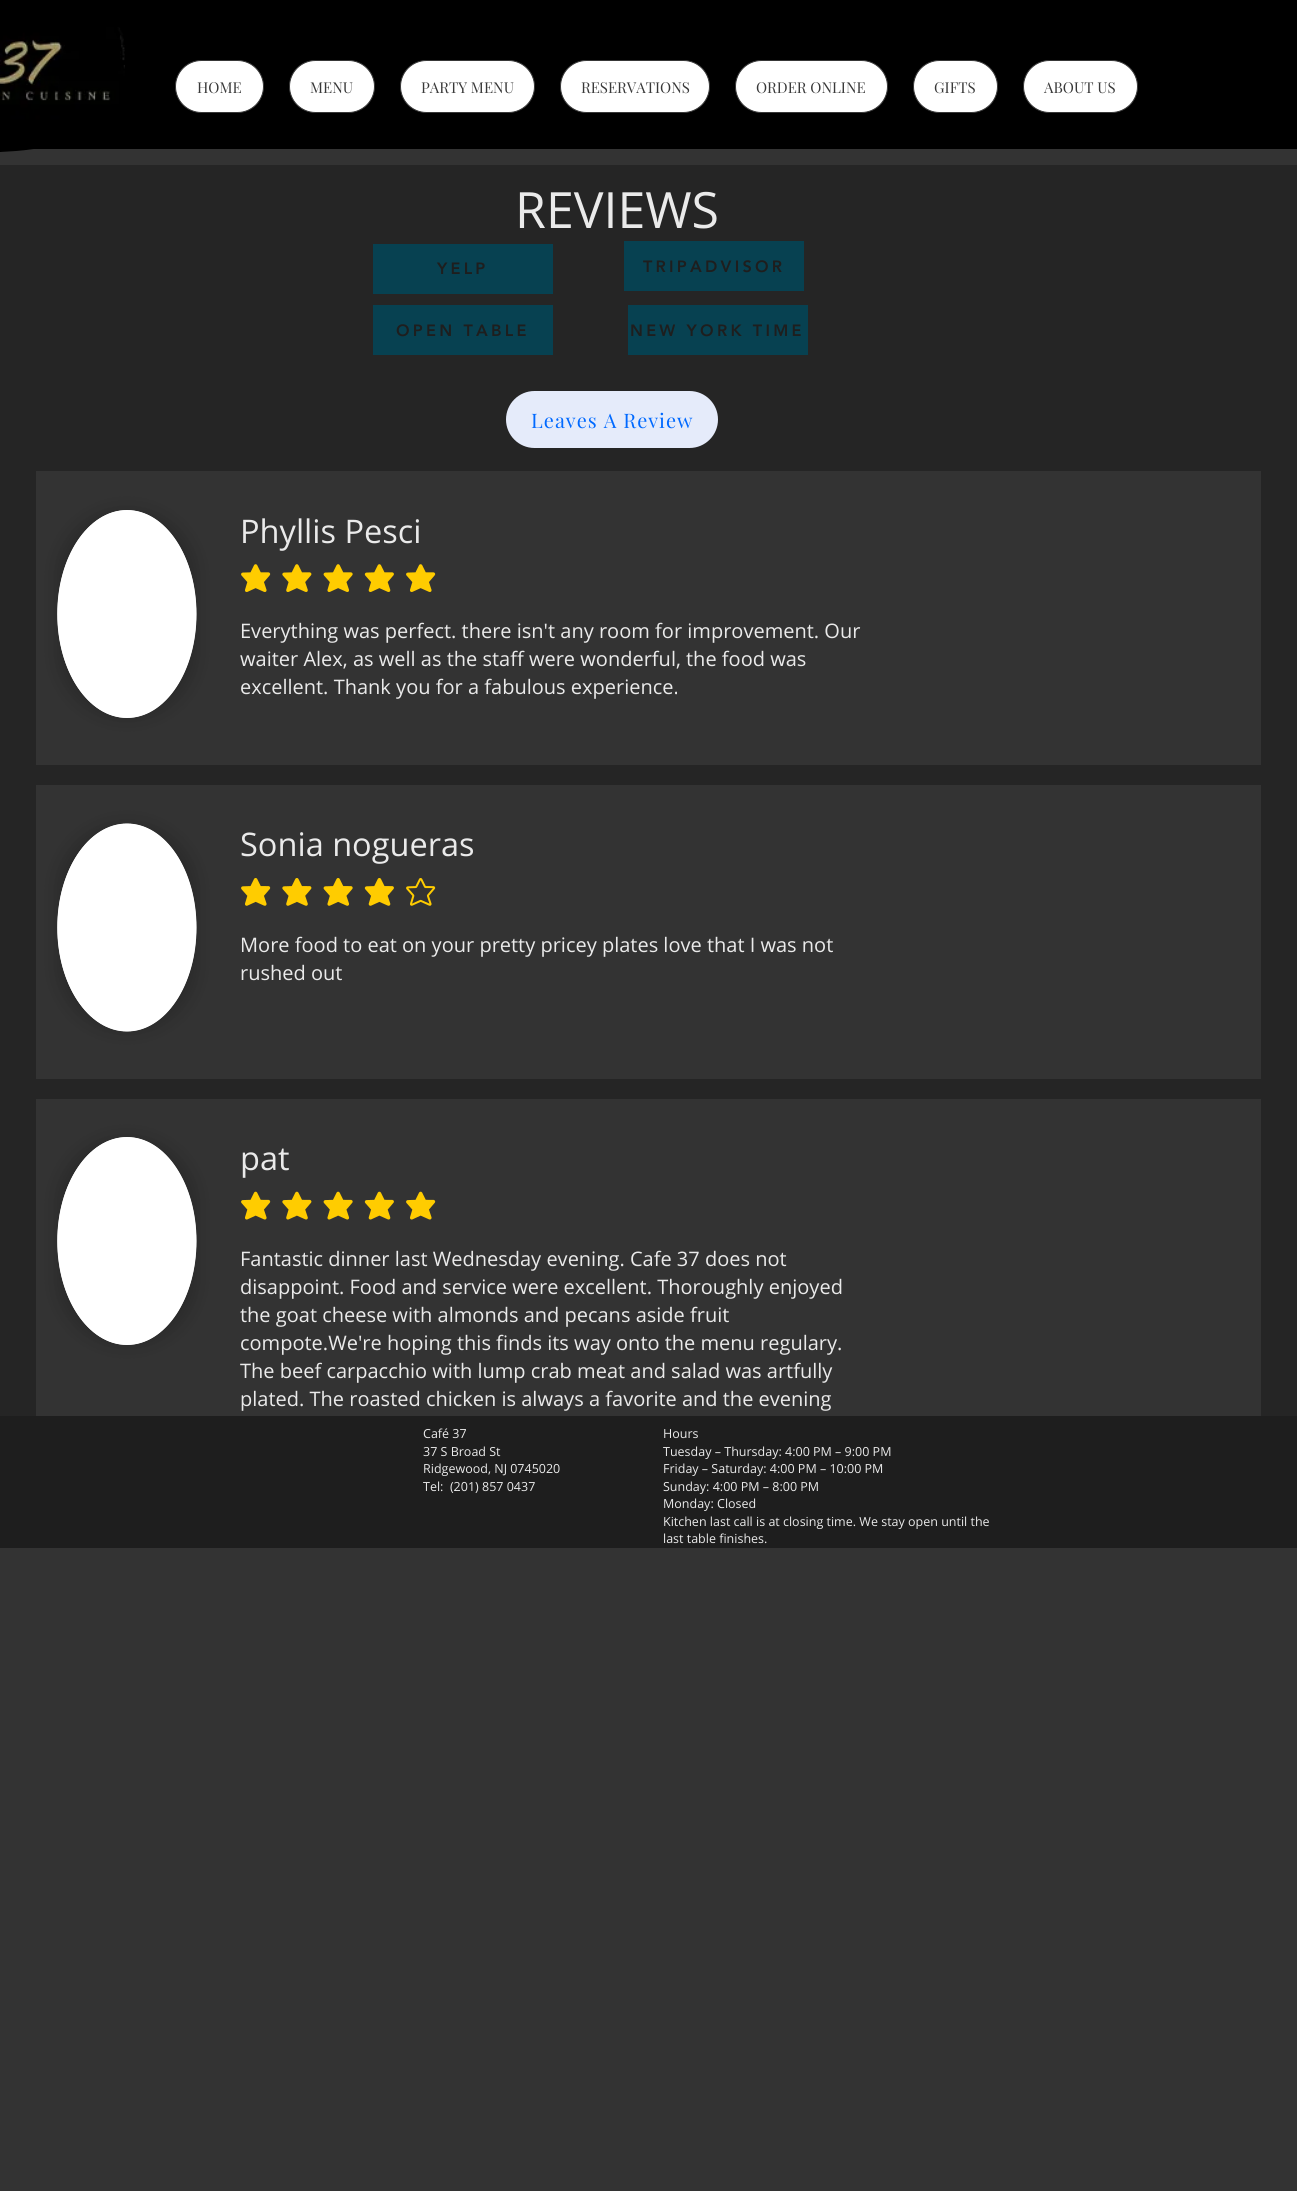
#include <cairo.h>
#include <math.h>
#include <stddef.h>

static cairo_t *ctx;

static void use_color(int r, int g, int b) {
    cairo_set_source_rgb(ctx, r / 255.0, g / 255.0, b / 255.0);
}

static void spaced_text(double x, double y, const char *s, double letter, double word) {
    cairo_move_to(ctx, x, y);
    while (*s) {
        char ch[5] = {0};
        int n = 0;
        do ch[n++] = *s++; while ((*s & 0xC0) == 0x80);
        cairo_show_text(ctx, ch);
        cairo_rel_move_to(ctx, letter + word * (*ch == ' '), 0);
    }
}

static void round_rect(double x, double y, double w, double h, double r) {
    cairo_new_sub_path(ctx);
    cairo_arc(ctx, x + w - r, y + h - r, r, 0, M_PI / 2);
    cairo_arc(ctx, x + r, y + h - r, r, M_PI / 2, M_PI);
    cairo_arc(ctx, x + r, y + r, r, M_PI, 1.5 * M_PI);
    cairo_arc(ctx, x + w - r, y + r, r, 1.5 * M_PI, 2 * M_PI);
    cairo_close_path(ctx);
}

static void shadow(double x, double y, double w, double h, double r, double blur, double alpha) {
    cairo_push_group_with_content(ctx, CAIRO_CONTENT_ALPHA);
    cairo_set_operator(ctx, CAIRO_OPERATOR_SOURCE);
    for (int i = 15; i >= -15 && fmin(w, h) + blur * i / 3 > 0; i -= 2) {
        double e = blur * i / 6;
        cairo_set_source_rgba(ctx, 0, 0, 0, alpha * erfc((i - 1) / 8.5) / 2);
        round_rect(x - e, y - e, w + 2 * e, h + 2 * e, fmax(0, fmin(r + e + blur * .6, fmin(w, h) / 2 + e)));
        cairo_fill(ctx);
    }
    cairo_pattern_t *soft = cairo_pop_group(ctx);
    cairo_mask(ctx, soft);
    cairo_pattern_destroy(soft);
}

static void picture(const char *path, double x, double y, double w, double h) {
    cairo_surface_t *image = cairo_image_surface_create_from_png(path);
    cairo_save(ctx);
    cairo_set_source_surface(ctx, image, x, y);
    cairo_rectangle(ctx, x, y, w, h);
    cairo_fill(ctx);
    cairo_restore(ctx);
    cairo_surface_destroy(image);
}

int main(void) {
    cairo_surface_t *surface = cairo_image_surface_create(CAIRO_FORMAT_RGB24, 1297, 2191);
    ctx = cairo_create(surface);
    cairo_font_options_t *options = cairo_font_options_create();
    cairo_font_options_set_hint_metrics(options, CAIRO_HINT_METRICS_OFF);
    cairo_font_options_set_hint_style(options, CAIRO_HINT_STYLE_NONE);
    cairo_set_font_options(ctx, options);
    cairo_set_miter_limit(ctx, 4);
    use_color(51, 51, 51);
    cairo_paint(ctx);
    use_color(0, 0, 0);
    cairo_rectangle(ctx, 0, 0, 1297, 149);
    cairo_fill(ctx);
    picture("img1.png", 0, 27, 125, 125);
    use_color(255, 255, 255);
    round_rect(175.5, 60.5, 88, 52, 26);
    cairo_fill_preserve(ctx);
    use_color(56, 56, 56);
    cairo_set_line_width(ctx, 1);
    cairo_stroke(ctx);
    cairo_select_font_face(ctx, "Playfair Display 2", CAIRO_FONT_SLANT_NORMAL, CAIRO_FONT_WEIGHT_NORMAL);
    cairo_set_font_size(ctx, 15);
    cairo_move_to(ctx, 197, 93);
    cairo_show_text(ctx, "HOME");
    use_color(255, 255, 255);
    round_rect(289.5, 60.5, 85, 52, 26);
    cairo_fill_preserve(ctx);
    use_color(56, 56, 56);
    cairo_stroke(ctx);
    cairo_move_to(ctx, 310, 93);
    cairo_show_text(ctx, "MENU");
    use_color(255, 255, 255);
    round_rect(400.5, 60.5, 134, 52, 26);
    cairo_fill_preserve(ctx);
    use_color(56, 56, 56);
    cairo_stroke(ctx);
    cairo_move_to(ctx, 421, 93);
    cairo_show_text(ctx, "PARTY MENU");
    use_color(255, 255, 255);
    round_rect(560.5, 60.5, 149, 52, 26);
    cairo_fill_preserve(ctx);
    use_color(56, 56, 56);
    cairo_stroke(ctx);
    cairo_move_to(ctx, 581, 93);
    cairo_show_text(ctx, "RESERVATIONS");
    use_color(255, 255, 255);
    round_rect(735.5, 60.5, 152, 52, 26);
    cairo_fill_preserve(ctx);
    use_color(56, 56, 56);
    cairo_stroke(ctx);
    cairo_move_to(ctx, 756, 93);
    cairo_show_text(ctx, "ORDER ONLINE");
    use_color(255, 255, 255);
    round_rect(913.5, 60.5, 84, 52, 26);
    cairo_fill_preserve(ctx);
    use_color(56, 56, 56);
    cairo_stroke(ctx);
    cairo_move_to(ctx, 934, 93);
    cairo_show_text(ctx, "GIFTS");
    use_color(255, 255, 255);
    round_rect(1023.5, 60.5, 114, 52, 26);
    cairo_fill_preserve(ctx);
    use_color(56, 56, 56);
    cairo_stroke(ctx);
    cairo_move_to(ctx, 1044, 93);
    cairo_show_text(ctx, "ABOUT US");
    use_color(37, 37, 37);
    cairo_rectangle(ctx, 0, 165, 1297, 1251);
    cairo_fill(ctx);
    cairo_select_font_face(ctx, "Open Sans", CAIRO_FONT_SLANT_NORMAL, CAIRO_FONT_WEIGHT_NORMAL);
    cairo_set_font_size(ctx, 50);
    use_color(234, 234, 234);
    cairo_move_to(ctx, 515, 228);
    cairo_show_text(ctx, "REVIEWS");
    use_color(7, 65, 81);
    cairo_rectangle(ctx, 373, 244, 180, 50);
    cairo_fill(ctx);
    cairo_select_font_face(ctx, "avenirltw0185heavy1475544 Black", CAIRO_FONT_SLANT_NORMAL, CAIRO_FONT_WEIGHT_NORMAL);
    cairo_set_font_size(ctx, 16.25);
    use_color(30, 30, 30);
    spaced_text(437, 274, "YELP", 3.25, 0);
    use_color(7, 65, 81);
    cairo_rectangle(ctx, 624, 241, 180, 50);
    cairo_fill(ctx);
    cairo_save(ctx);
    cairo_rectangle(ctx, 643, 258, 142, 18);
    cairo_clip(ctx);
    use_color(30, 30, 30);
    spaced_text(643, 272, "TRIPADVISOR", 3.25, 0);
    cairo_restore(ctx);
    cairo_rectangle(ctx, 373, 305, 180, 50);
    cairo_fill(ctx);
    use_color(30, 30, 30);
    spaced_text(396, 336, "OPEN TABLE", 3.25, 0);
    use_color(7, 65, 81);
    cairo_rectangle(ctx, 628, 305, 180, 50);
    cairo_fill(ctx);
    use_color(30, 30, 30);
    spaced_text(630, 336, "NEW YORK TIME", 3.25, 0);
    use_color(229, 235, 250);
    round_rect(506, 391, 212, 57, 28.5);
    cairo_fill(ctx);
    cairo_select_font_face(ctx, "Playfair Display", CAIRO_FONT_SLANT_NORMAL, CAIRO_FONT_WEIGHT_NORMAL);
    cairo_set_font_size(ctx, 20);
    use_color(0, 105, 255);
    spaced_text(531, 428, "Leaves A Review", 1, 0);
    use_color(51, 51, 51);
    cairo_rectangle(ctx, 36, 471, 1225, 294);
    cairo_fill(ctx);
    use_color(0, 0, 0);
    shadow(58, 510, 138, 208, 69, 9, 0.2);
    use_color(255, 255, 255);
    cairo_new_path(ctx);
    cairo_move_to(ctx, 127, 510);
    cairo_curve_to(ctx, 165.5, 510, 196.5, 556.5, 196.5, 614);
    cairo_curve_to(ctx, 196.5, 671.5, 165.5, 718, 127, 718);
    cairo_curve_to(ctx, 88.5, 718, 57.5, 671.5, 57.5, 614);
    cairo_curve_to(ctx, 57.5, 556.5, 88.5, 510, 127, 510);
    cairo_close_path(ctx);
    cairo_fill(ctx);
    cairo_new_path(ctx);
    cairo_move_to(ctx, 127, 514);
    cairo_curve_to(ctx, 163, 514, 192.5, 558.5, 192.5, 614);
    cairo_curve_to(ctx, 192.5, 669, 163, 714, 127, 714);
    cairo_curve_to(ctx, 90.5, 714, 61, 669, 61, 614);
    cairo_curve_to(ctx, 61, 558.5, 90.5, 514, 127, 514);
    cairo_close_path(ctx);
    cairo_set_line_width(ctx, 7.5);
    cairo_stroke(ctx);
    cairo_select_font_face(ctx, "Open Sans", CAIRO_FONT_SLANT_NORMAL, CAIRO_FONT_WEIGHT_NORMAL);
    cairo_set_font_size(ctx, 32.5);
    use_color(234, 234, 234);
    cairo_move_to(ctx, 240, 543);
    cairo_show_text(ctx, "Phyllis Pesci");
    picture("img2.png", 241, 564, 30, 28);
    picture("img3.png", 282, 564, 30, 28);
    picture("img4.png", 323, 564, 30, 28);
    picture("img5.png", 364, 564, 30, 28);
    picture("img2.png", 406, 564, 30, 28);
    cairo_set_font_size(ctx, 20);
    cairo_move_to(ctx, 240, 638);
    cairo_show_text(ctx, "Everything was perfect. there isn't any room for improvement. Our");
    cairo_move_to(ctx, 240, 666);
    cairo_show_text(ctx, "waiter Alex, as well as the staff were wonderful, the food was");
    cairo_move_to(ctx, 240, 694);
    cairo_show_text(ctx, "excellent. Thank you for a fabulous experience.");
    use_color(51, 51, 51);
    cairo_rectangle(ctx, 36, 785, 1225, 294);
    cairo_fill(ctx);
    use_color(0, 0, 0);
    shadow(58, 824, 138, 207, 69, 9, 0.2);
    use_color(255, 255, 255);
    cairo_new_path(ctx);
    cairo_move_to(ctx, 127, 823.5);
    cairo_curve_to(ctx, 165.5, 823.5, 196.5, 870, 196.5, 927.5);
    cairo_curve_to(ctx, 196.5, 985, 165.5, 1031.5, 127, 1031.5);
    cairo_curve_to(ctx, 88.5, 1031.5, 57.5, 985, 57.5, 927.5);
    cairo_curve_to(ctx, 57.5, 870, 88.5, 823.5, 127, 823.5);
    cairo_close_path(ctx);
    cairo_fill(ctx);
    cairo_new_path(ctx);
    cairo_move_to(ctx, 127, 827.5);
    cairo_curve_to(ctx, 163, 827.5, 192.5, 872.5, 192.5, 927.5);
    cairo_curve_to(ctx, 192.5, 982.5, 163, 1027.5, 127, 1027.5);
    cairo_curve_to(ctx, 90.5, 1027.5, 61, 982.5, 61, 927.5);
    cairo_curve_to(ctx, 61, 872.5, 90.5, 827.5, 127, 827.5);
    cairo_close_path(ctx);
    cairo_stroke(ctx);
    cairo_set_font_size(ctx, 32.5);
    use_color(234, 234, 234);
    cairo_move_to(ctx, 240, 856);
    cairo_show_text(ctx, "Sonia nogueras");
    picture("img6.png", 241, 878, 30, 28);
    picture("img7.png", 282, 878, 30, 28);
    picture("img8.png", 323, 878, 30, 28);
    picture("img9.png", 364, 878, 30, 28);
    picture("img10.png", 406, 878, 30, 28);
    cairo_set_font_size(ctx, 20);
    cairo_move_to(ctx, 240, 952);
    cairo_show_text(ctx, "More food to eat on your pretty pricey plates love that I was not");
    cairo_move_to(ctx, 240, 980);
    cairo_show_text(ctx, "rushed out");
    use_color(51, 51, 51);
    cairo_rectangle(ctx, 36, 1099, 1225, 317);
    cairo_fill(ctx);
    use_color(0, 0, 0);
    shadow(58, 1138, 138, 207, 69, 9, 0.2);
    use_color(255, 255, 255);
    cairo_new_path(ctx);
    cairo_move_to(ctx, 127, 1137);
    cairo_curve_to(ctx, 165.5, 1137, 196.5, 1183.5, 196.5, 1241);
    cairo_curve_to(ctx, 196.5, 1298.5, 165.5, 1345, 127, 1345);
    cairo_curve_to(ctx, 88.5, 1345, 57.5, 1298.5, 57.5, 1241);
    cairo_curve_to(ctx, 57.5, 1183.5, 88.5, 1137, 127, 1137);
    cairo_close_path(ctx);
    cairo_fill(ctx);
    cairo_new_path(ctx);
    cairo_move_to(ctx, 127, 1141);
    cairo_curve_to(ctx, 163, 1141, 192.5, 1186, 192.5, 1241);
    cairo_curve_to(ctx, 192.5, 1296.5, 163, 1341, 127, 1341);
    cairo_curve_to(ctx, 90.5, 1341, 61, 1296.5, 61, 1241);
    cairo_curve_to(ctx, 61, 1186, 90.5, 1141, 127, 1141);
    cairo_close_path(ctx);
    cairo_stroke(ctx);
    cairo_set_font_size(ctx, 32.5);
    use_color(234, 234, 234);
    cairo_move_to(ctx, 240, 1170);
    cairo_show_text(ctx, "pat");
    picture("img11.png", 241, 1191, 30, 29);
    picture("img12.png", 282, 1191, 30, 29);
    picture("img13.png", 323, 1191, 30, 29);
    picture("img14.png", 364, 1191, 30, 29);
    picture("img11.png", 406, 1191, 30, 29);
    cairo_set_font_size(ctx, 20);
    cairo_move_to(ctx, 240, 1266);
    cairo_show_text(ctx, "Fantastic dinner last Wednesday evening. Cafe 37 does not");
    cairo_move_to(ctx, 240, 1294);
    cairo_show_text(ctx, "disappoint. Food and service were excellent. Thoroughly enjoyed");
    cairo_move_to(ctx, 240, 1322);
    cairo_show_text(ctx, "the goat cheese with almonds and pecans aside fruit");
    cairo_move_to(ctx, 240, 1350);
    cairo_show_text(ctx, "compote.We're hoping this finds its way onto the menu regulary.");
    cairo_move_to(ctx, 240, 1378);
    cairo_show_text(ctx, "The beef carpacchio with lump crab meat and salad was artfully");
    cairo_move_to(ctx, 240, 1406);
    cairo_show_text(ctx, "plated. The roasted chicken is always a favorite and the evening");
    use_color(30, 30, 30);
    cairo_rectangle(ctx, 0, 1416, 1297, 132);
    cairo_fill(ctx);
    cairo_set_font_size(ctx, 12.5);
    use_color(234, 234, 234);
    cairo_move_to(ctx, 423, 1438);
    cairo_show_text(ctx, "Café 37");
    cairo_move_to(ctx, 423, 1456);
    cairo_show_text(ctx, "37 S Broad St");
    cairo_move_to(ctx, 423, 1473);
    cairo_show_text(ctx, "Ridgewood, NJ 0745020");
    cairo_move_to(ctx, 423, 1491);
    cairo_show_text(ctx, "Tel:  (201) 857 0437");
    cairo_move_to(ctx, 663, 1438);
    cairo_show_text(ctx, "Hours");
    cairo_move_to(ctx, 663, 1456);
    cairo_show_text(ctx, "Tuesday – Thursday: 4:00 PM – 9:00 PM");
    cairo_move_to(ctx, 663, 1473);
    cairo_show_text(ctx, "Friday – Saturday: 4:00 PM – 10:00 PM");
    cairo_move_to(ctx, 663, 1491);
    cairo_show_text(ctx, "Sunday: 4:00 PM – 8:00 PM");
    cairo_move_to(ctx, 663, 1508);
    cairo_show_text(ctx, "Monday: Closed");
    cairo_move_to(ctx, 663, 1526);
    cairo_show_text(ctx, "Kitchen last call is at closing time. We stay open until the");
    cairo_move_to(ctx, 663, 1543);
    cairo_show_text(ctx, "last table finishes.");
    cairo_surface_write_to_png(surface, "result.png");
    cairo_font_options_destroy(options);
    cairo_destroy(ctx);
    cairo_surface_destroy(surface);
    return 0;
}
